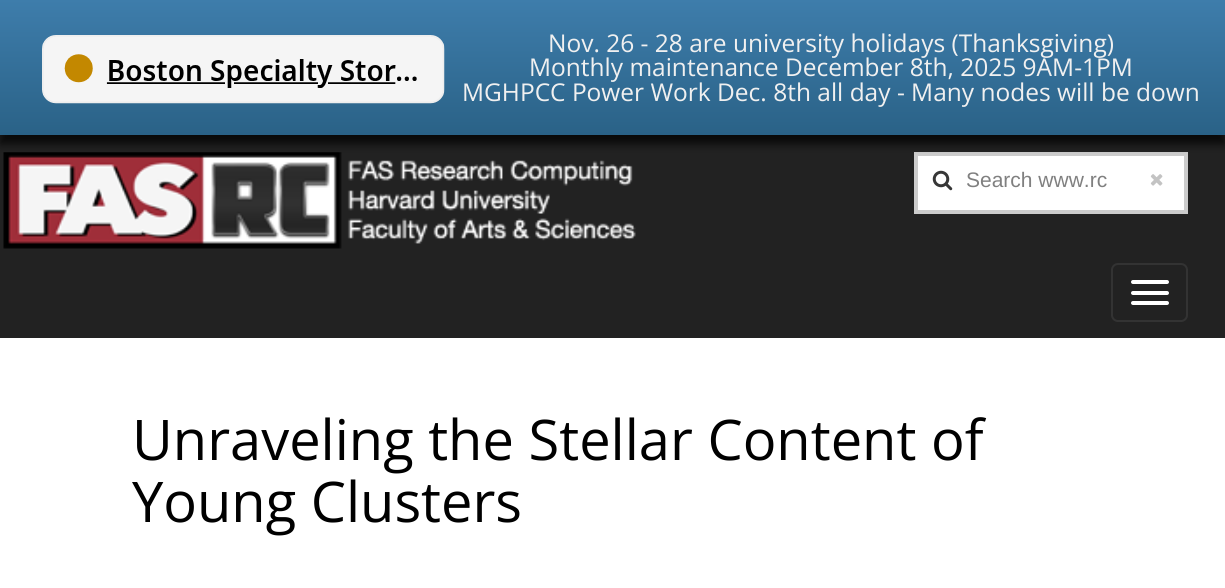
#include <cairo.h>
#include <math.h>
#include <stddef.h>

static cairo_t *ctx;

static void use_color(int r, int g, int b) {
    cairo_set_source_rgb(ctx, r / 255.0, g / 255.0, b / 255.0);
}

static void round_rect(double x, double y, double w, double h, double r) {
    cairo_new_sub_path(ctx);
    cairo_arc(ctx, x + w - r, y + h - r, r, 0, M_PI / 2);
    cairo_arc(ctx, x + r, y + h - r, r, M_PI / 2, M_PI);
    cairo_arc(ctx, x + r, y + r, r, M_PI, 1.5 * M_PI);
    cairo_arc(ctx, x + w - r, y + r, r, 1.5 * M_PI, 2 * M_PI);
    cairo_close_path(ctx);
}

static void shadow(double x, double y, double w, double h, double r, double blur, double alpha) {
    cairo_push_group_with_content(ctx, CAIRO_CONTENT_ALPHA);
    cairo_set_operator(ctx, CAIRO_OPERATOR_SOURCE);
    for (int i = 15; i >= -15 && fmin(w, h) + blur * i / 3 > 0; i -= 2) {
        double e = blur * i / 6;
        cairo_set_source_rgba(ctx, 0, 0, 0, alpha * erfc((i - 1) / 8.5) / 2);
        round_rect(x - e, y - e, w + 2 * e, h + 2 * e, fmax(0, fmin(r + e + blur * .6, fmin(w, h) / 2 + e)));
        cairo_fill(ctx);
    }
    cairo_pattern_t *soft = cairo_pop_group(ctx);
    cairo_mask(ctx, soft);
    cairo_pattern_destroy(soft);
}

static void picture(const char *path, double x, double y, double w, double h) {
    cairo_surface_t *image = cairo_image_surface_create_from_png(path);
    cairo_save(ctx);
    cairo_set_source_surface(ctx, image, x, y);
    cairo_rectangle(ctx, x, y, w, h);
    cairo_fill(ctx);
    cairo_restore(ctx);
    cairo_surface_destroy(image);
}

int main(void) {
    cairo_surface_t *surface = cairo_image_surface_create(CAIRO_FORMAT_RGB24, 1225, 588);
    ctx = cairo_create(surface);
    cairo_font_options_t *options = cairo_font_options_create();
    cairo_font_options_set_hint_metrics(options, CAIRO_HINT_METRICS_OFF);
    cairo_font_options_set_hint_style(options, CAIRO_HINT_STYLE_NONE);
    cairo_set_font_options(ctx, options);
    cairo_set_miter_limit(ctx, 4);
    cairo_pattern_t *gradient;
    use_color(255, 255, 255);
    cairo_paint(ctx);
    use_color(34, 34, 34);
    cairo_rectangle(ctx, 0, 135, 1225, 203);
    cairo_fill(ctx);
    picture("img2.png", 3, 152, 633, 97);
    use_color(255, 255, 255);
    cairo_rectangle(ctx, 916, 154, 270, 58);
    cairo_fill_preserve(ctx);
    use_color(204, 204, 204);
    cairo_set_line_width(ctx, 4);
    cairo_stroke(ctx);
    use_color(0, 0, 0);
    shadow(0, 9, 1225, 135, 0, 4.5, 0.75);
    gradient = cairo_pattern_create_linear(613, 0, 613, 135);
    cairo_pattern_add_color_stop_rgba(gradient, 0, 0.243, 0.49, 0.671, 1);
    cairo_pattern_add_color_stop_rgba(gradient, 1, 0.165, 0.384, 0.529, 1);
    cairo_set_source(ctx, gradient);
    cairo_pattern_destroy(gradient);
    cairo_rectangle(ctx, 0, 0, 1225, 135);
    cairo_fill(ctx);
    picture("img1.png", 42, 35, 403, 69);
    cairo_select_font_face(ctx, "Open Sans", CAIRO_FONT_SLANT_NORMAL, CAIRO_FONT_WEIGHT_NORMAL);
    cairo_set_font_size(ctx, 24.5);
    use_color(240, 240, 240);
    cairo_move_to(ctx, 548, 52);
    cairo_show_text(ctx, "Nov. 26 - 28 are university holidays (Thanksgiving)");
    cairo_move_to(ctx, 529, 76);
    cairo_show_text(ctx, "Monthly maintenance December 8th, 2025 9AM-1PM");
    cairo_move_to(ctx, 462, 101);
    cairo_show_text(ctx, "MGHPCC Power Work Dec. 8th all day - Many nodes will be down");
    picture("img3.png", 932, 170, 21, 21);
    cairo_select_font_face(ctx, "Liberation Sans", CAIRO_FONT_SLANT_NORMAL, CAIRO_FONT_WEIGHT_NORMAL);
    cairo_set_font_size(ctx, 21);
    use_color(128, 128, 128);
    cairo_move_to(ctx, 966, 187);
    cairo_show_text(ctx, "Search www.rc");
    picture("img4.png", 1150, 174, 13, 12);
    round_rect(1112, 264, 75, 57, 6);
    use_color(51, 51, 51);
    cairo_set_line_width(ctx, 2);
    cairo_stroke(ctx);
    use_color(255, 255, 255);
    round_rect(1131, 280, 38, 4, 2);
    cairo_fill(ctx);
    round_rect(1131, 291, 38, 4, 2);
    cairo_fill(ctx);
    round_rect(1131, 301, 38, 4, 2);
    cairo_fill(ctx);
    cairo_select_font_face(ctx, "Open Sans", CAIRO_FONT_SLANT_NORMAL, CAIRO_FONT_WEIGHT_NORMAL);
    cairo_set_font_size(ctx, 56);
    use_color(0, 0, 0);
    cairo_move_to(ctx, 132, 460);
    cairo_show_text(ctx, "Unraveling the Stellar Content of");
    cairo_move_to(ctx, 132, 522);
    cairo_show_text(ctx, "Young Clusters");
    cairo_surface_write_to_png(surface, "result.png");
    cairo_font_options_destroy(options);
    cairo_destroy(ctx);
    cairo_surface_destroy(surface);
    return 0;
}
